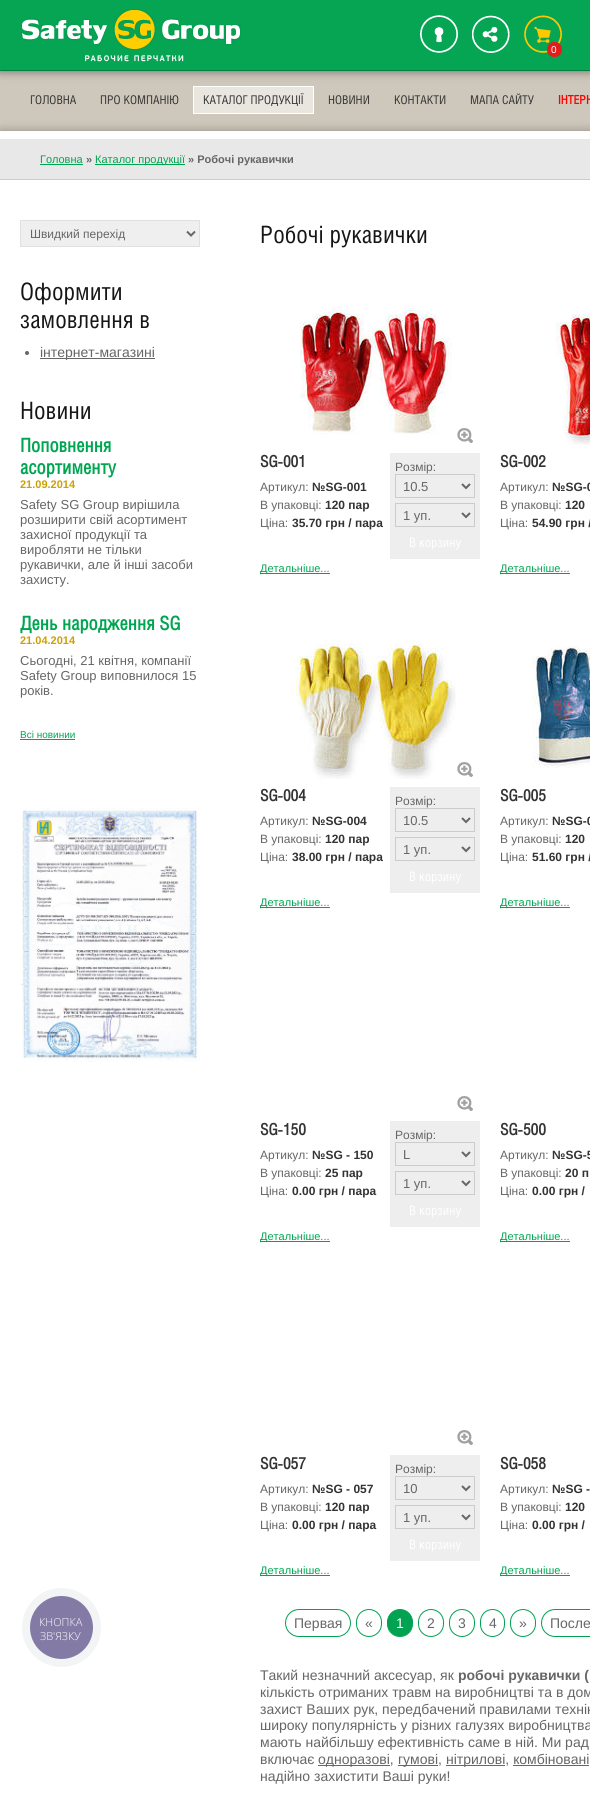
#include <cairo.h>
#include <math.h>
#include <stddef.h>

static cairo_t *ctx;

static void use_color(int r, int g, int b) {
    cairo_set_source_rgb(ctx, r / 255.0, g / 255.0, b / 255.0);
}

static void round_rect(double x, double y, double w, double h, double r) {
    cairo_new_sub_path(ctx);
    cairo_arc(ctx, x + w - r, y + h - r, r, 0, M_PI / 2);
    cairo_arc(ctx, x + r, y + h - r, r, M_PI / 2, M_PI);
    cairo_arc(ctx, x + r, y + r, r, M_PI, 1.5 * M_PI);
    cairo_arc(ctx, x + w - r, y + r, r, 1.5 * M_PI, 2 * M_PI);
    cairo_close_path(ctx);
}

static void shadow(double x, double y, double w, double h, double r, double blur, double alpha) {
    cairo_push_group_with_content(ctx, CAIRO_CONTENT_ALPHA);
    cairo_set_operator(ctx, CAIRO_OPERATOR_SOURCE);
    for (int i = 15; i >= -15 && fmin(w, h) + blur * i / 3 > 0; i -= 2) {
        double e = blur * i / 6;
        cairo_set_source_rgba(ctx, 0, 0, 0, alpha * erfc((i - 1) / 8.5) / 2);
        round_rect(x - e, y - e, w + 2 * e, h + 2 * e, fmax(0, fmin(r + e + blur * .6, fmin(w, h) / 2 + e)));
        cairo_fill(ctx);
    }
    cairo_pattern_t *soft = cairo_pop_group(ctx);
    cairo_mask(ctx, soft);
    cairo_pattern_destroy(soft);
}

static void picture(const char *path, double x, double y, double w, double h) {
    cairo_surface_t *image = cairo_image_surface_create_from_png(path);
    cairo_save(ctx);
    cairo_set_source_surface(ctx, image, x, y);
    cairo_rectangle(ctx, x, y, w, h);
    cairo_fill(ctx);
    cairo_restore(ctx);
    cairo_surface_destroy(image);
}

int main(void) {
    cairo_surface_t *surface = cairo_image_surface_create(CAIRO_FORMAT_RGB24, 590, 1801);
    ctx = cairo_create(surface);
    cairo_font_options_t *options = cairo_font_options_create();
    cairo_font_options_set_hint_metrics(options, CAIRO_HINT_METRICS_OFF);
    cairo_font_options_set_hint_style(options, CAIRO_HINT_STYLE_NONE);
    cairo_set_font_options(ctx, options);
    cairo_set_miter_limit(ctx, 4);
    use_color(206, 199, 187);
    cairo_paint(ctx);
    use_color(233, 229, 223);
    cairo_rectangle(ctx, 193.5, 86.5, 120, 27);
    cairo_fill_preserve(ctx);
    use_color(255, 255, 255);
    cairo_set_line_width(ctx, 1);
    cairo_stroke(ctx);
    use_color(0, 0, 0);
    shadow(0, 0, 590, 71, 0, 5, 0.5);
    use_color(5, 165, 83);
    cairo_rectangle(ctx, 0, 0, 590, 70);
    cairo_fill(ctx);
    use_color(0, 130, 64);
    cairo_rectangle(ctx, 0, 70, 590, 1);
    cairo_fill(ctx);
    picture("img1.png", 21, 9, 220, 53);
    picture("img2.png", 420, 15, 38, 38);
    picture("img3.png", 472, 15, 38, 38);
    picture("img4.png", 524, 15, 38, 38);
    use_color(227, 28, 28);
    round_rect(547, 42, 15, 15, 7);
    cairo_fill(ctx);
    cairo_select_font_face(ctx, "Liberation Sans", CAIRO_FONT_SLANT_NORMAL, CAIRO_FONT_WEIGHT_NORMAL);
    cairo_set_font_size(ctx, 10);
    use_color(255, 255, 255);
    cairo_move_to(ctx, 551, 53);
    cairo_show_text(ctx, "0");
    cairo_select_font_face(ctx, "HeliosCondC", CAIRO_FONT_SLANT_NORMAL, CAIRO_FONT_WEIGHT_NORMAL);
    cairo_set_font_size(ctx, 12);
    use_color(51, 51, 51);
    cairo_move_to(ctx, 30, 104);
    cairo_show_text(ctx, "ГОЛОВНА");
    cairo_move_to(ctx, 100, 104);
    cairo_show_text(ctx, "ПРО КОМПАНІЮ");
    cairo_move_to(ctx, 203, 104);
    cairo_show_text(ctx, "КАТАЛОГ ПРОДУКЦІЇ");
    cairo_move_to(ctx, 328, 104);
    cairo_show_text(ctx, "НОВИНИ");
    cairo_move_to(ctx, 394, 104);
    cairo_show_text(ctx, "КОНТАКТИ");
    cairo_move_to(ctx, 470, 104);
    cairo_show_text(ctx, "МАПА САЙТУ");
    cairo_select_font_face(ctx, "HeliosCondC", CAIRO_FONT_SLANT_NORMAL, CAIRO_FONT_WEIGHT_BOLD);
    use_color(255, 0, 0);
    cairo_move_to(ctx, 558, 104);
    cairo_show_text(ctx, "ІНТЕРН");
    use_color(0, 0, 0);
    shadow(0, 131, 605, 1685, 0, 5, 0.3);
    use_color(255, 255, 255);
    cairo_rectangle(ctx, 0, 131, 590, 1670);
    cairo_fill(ctx);
    use_color(232, 232, 232);
    cairo_rectangle(ctx, 0, 139, 590, 40);
    cairo_fill(ctx);
    use_color(204, 204, 204);
    cairo_rectangle(ctx, 0, 179, 590, 1);
    cairo_fill(ctx);
    cairo_select_font_face(ctx, "Liberation Sans", CAIRO_FONT_SLANT_NORMAL, CAIRO_FONT_WEIGHT_NORMAL);
    cairo_set_font_size(ctx, 11);
    use_color(0, 165, 81);
    cairo_move_to(ctx, 40, 163);
    cairo_show_text(ctx, "Головна");
    cairo_rectangle(ctx, 40, 164, 43, 1);
    cairo_fill(ctx);
    cairo_select_font_face(ctx, "Liberation Sans", CAIRO_FONT_SLANT_NORMAL, CAIRO_FONT_WEIGHT_BOLD);
    use_color(102, 102, 102);
    cairo_move_to(ctx, 86, 163);
    cairo_show_text(ctx, "»");
    use_color(0, 165, 81);
    cairo_rectangle(ctx, 95, 164, 90, 1);
    cairo_fill(ctx);
    cairo_select_font_face(ctx, "Liberation Sans", CAIRO_FONT_SLANT_NORMAL, CAIRO_FONT_WEIGHT_NORMAL);
    cairo_move_to(ctx, 95, 163);
    cairo_show_text(ctx, "Каталог продукції");
    cairo_select_font_face(ctx, "Liberation Sans", CAIRO_FONT_SLANT_NORMAL, CAIRO_FONT_WEIGHT_BOLD);
    use_color(102, 102, 102);
    cairo_move_to(ctx, 188, 163);
    cairo_show_text(ctx, "» Робочі рукавички");
    use_color(239, 239, 239);
    cairo_rectangle(ctx, 20.5, 220.5, 179, 26);
    cairo_fill_preserve(ctx);
    use_color(224, 224, 224);
    cairo_stroke(ctx);
    cairo_new_path(ctx);
    cairo_move_to(ctx, 187, 231.5);
    cairo_line_to(ctx, 191, 235.5);
    cairo_line_to(ctx, 195, 231.5);
    use_color(102, 102, 102);
    cairo_set_line_width(ctx, 2);
    cairo_stroke(ctx);
    cairo_select_font_face(ctx, "Liberation Sans", CAIRO_FONT_SLANT_NORMAL, CAIRO_FONT_WEIGHT_NORMAL);
    cairo_set_font_size(ctx, 12);
    cairo_move_to(ctx, 30, 238);
    cairo_show_text(ctx, "Швидкий перехід");
    cairo_select_font_face(ctx, "HeliosCondC", CAIRO_FONT_SLANT_NORMAL, CAIRO_FONT_WEIGHT_NORMAL);
    cairo_set_font_size(ctx, 24);
    use_color(22, 22, 22);
    cairo_move_to(ctx, 20, 300);
    cairo_show_text(ctx, "Оформити");
    cairo_move_to(ctx, 20, 328);
    cairo_show_text(ctx, "замовлення в");
    use_color(102, 102, 102);
    cairo_new_path(ctx);
    cairo_arc(ctx, 27, 353, 2, 0, 2 * M_PI);
    cairo_fill(ctx);
    cairo_rectangle(ctx, 40, 358, 115, 1);
    cairo_fill(ctx);
    cairo_select_font_face(ctx, "Liberation Sans", CAIRO_FONT_SLANT_NORMAL, CAIRO_FONT_WEIGHT_NORMAL);
    cairo_set_font_size(ctx, 14);
    cairo_move_to(ctx, 40, 357);
    cairo_show_text(ctx, "інтернет-магазині");
    cairo_select_font_face(ctx, "HeliosCondC", CAIRO_FONT_SLANT_NORMAL, CAIRO_FONT_WEIGHT_NORMAL);
    cairo_set_font_size(ctx, 24);
    use_color(22, 22, 22);
    cairo_move_to(ctx, 20, 419);
    cairo_show_text(ctx, "Новини");
    cairo_select_font_face(ctx, "HeliosCondC", CAIRO_FONT_SLANT_NORMAL, CAIRO_FONT_WEIGHT_BOLD);
    cairo_set_font_size(ctx, 19);
    use_color(0, 165, 81);
    cairo_move_to(ctx, 20, 452);
    cairo_show_text(ctx, "Поповнення");
    cairo_move_to(ctx, 20, 474);
    cairo_show_text(ctx, "асортименту");
    cairo_select_font_face(ctx, "Liberation Sans", CAIRO_FONT_SLANT_NORMAL, CAIRO_FONT_WEIGHT_BOLD);
    cairo_set_font_size(ctx, 11);
    use_color(205, 160, 0);
    cairo_move_to(ctx, 20, 488);
    cairo_show_text(ctx, "21.09.2014");
    cairo_select_font_face(ctx, "Liberation Sans", CAIRO_FONT_SLANT_NORMAL, CAIRO_FONT_WEIGHT_NORMAL);
    cairo_set_font_size(ctx, 13);
    use_color(102, 102, 102);
    cairo_move_to(ctx, 20, 509);
    cairo_show_text(ctx, "Safety SG Group вирішила");
    cairo_move_to(ctx, 20, 524);
    cairo_show_text(ctx, "розширити свій асортимент");
    cairo_move_to(ctx, 20, 539);
    cairo_show_text(ctx, "захисної продукції та");
    cairo_move_to(ctx, 20, 554);
    cairo_show_text(ctx, "виробляти не тільки");
    cairo_move_to(ctx, 20, 569);
    cairo_show_text(ctx, "рукавички, але й інші засоби");
    cairo_move_to(ctx, 20, 584);
    cairo_show_text(ctx, "захисту.");
    cairo_select_font_face(ctx, "HeliosCondC", CAIRO_FONT_SLANT_NORMAL, CAIRO_FONT_WEIGHT_BOLD);
    cairo_set_font_size(ctx, 19);
    use_color(0, 165, 81);
    cairo_move_to(ctx, 20, 630);
    cairo_show_text(ctx, "День народження SG");
    cairo_select_font_face(ctx, "Liberation Sans", CAIRO_FONT_SLANT_NORMAL, CAIRO_FONT_WEIGHT_BOLD);
    cairo_set_font_size(ctx, 11);
    use_color(205, 160, 0);
    cairo_move_to(ctx, 20, 644);
    cairo_show_text(ctx, "21.04.2014");
    cairo_select_font_face(ctx, "Liberation Sans", CAIRO_FONT_SLANT_NORMAL, CAIRO_FONT_WEIGHT_NORMAL);
    cairo_set_font_size(ctx, 13);
    use_color(102, 102, 102);
    cairo_move_to(ctx, 20, 665);
    cairo_show_text(ctx, "Сьогодні, 21 квітня, компанії");
    cairo_move_to(ctx, 20, 680);
    cairo_show_text(ctx, "Safety Group виповнилося 15");
    cairo_move_to(ctx, 20, 695);
    cairo_show_text(ctx, "років.");
    cairo_set_font_size(ctx, 10);
    use_color(0, 165, 81);
    cairo_move_to(ctx, 20, 738);
    cairo_show_text(ctx, "Всі новинии");
    cairo_rectangle(ctx, 20, 739, 55, 1);
    cairo_fill(ctx);
    picture("img5.png", 21, 808, 179, 254);
    cairo_select_font_face(ctx, "HeliosCondC", CAIRO_FONT_SLANT_NORMAL, CAIRO_FONT_WEIGHT_NORMAL);
    cairo_set_font_size(ctx, 24);
    use_color(22, 22, 22);
    cairo_move_to(ctx, 260, 243);
    cairo_show_text(ctx, "Робочі рукавички");
    picture("img6.png", 300, 306, 152, 128);
    picture("img7.png", 457, 428, 16, 15);
    cairo_select_font_face(ctx, "HeliosCondC", CAIRO_FONT_SLANT_NORMAL, CAIRO_FONT_WEIGHT_BOLD);
    cairo_set_font_size(ctx, 16);
    use_color(51, 51, 51);
    cairo_move_to(ctx, 260, 467);
    cairo_show_text(ctx, "SG-001");
    cairo_select_font_face(ctx, "Liberation Sans", CAIRO_FONT_SLANT_NORMAL, CAIRO_FONT_WEIGHT_NORMAL);
    cairo_set_font_size(ctx, 12);
    use_color(102, 102, 102);
    cairo_move_to(ctx, 260, 491);
    cairo_show_text(ctx, "Артикул:");
    cairo_select_font_face(ctx, "Liberation Sans", CAIRO_FONT_SLANT_NORMAL, CAIRO_FONT_WEIGHT_BOLD);
    use_color(51, 51, 51);
    cairo_move_to(ctx, 312, 491);
    cairo_show_text(ctx, "№SG-001");
    cairo_select_font_face(ctx, "Liberation Sans", CAIRO_FONT_SLANT_NORMAL, CAIRO_FONT_WEIGHT_NORMAL);
    use_color(102, 102, 102);
    cairo_move_to(ctx, 260, 509);
    cairo_show_text(ctx, "В упаковці:");
    cairo_select_font_face(ctx, "Liberation Sans", CAIRO_FONT_SLANT_NORMAL, CAIRO_FONT_WEIGHT_BOLD);
    use_color(51, 51, 51);
    cairo_move_to(ctx, 325, 509);
    cairo_show_text(ctx, "120 пар");
    cairo_select_font_face(ctx, "Liberation Sans", CAIRO_FONT_SLANT_NORMAL, CAIRO_FONT_WEIGHT_NORMAL);
    use_color(102, 102, 102);
    cairo_move_to(ctx, 260, 527);
    cairo_show_text(ctx, "Ціна:");
    cairo_select_font_face(ctx, "Liberation Sans", CAIRO_FONT_SLANT_NORMAL, CAIRO_FONT_WEIGHT_BOLD);
    use_color(51, 51, 51);
    cairo_move_to(ctx, 292, 527);
    cairo_show_text(ctx, "35.70 грн / пара");
    use_color(238, 238, 238);
    cairo_rectangle(ctx, 390, 453, 90, 106);
    cairo_fill(ctx);
    cairo_select_font_face(ctx, "Liberation Sans", CAIRO_FONT_SLANT_NORMAL, CAIRO_FONT_WEIGHT_NORMAL);
    use_color(102, 102, 102);
    cairo_move_to(ctx, 395, 471);
    cairo_show_text(ctx, "Розмір:");
    cairo_rectangle(ctx, 395.5, 474.5, 79, 23);
    use_color(204, 204, 204);
    cairo_set_line_width(ctx, 1);
    cairo_stroke(ctx);
    cairo_new_path(ctx);
    cairo_move_to(ctx, 462, 484);
    cairo_line_to(ctx, 466, 488);
    cairo_line_to(ctx, 470, 484);
    use_color(102, 102, 102);
    cairo_set_line_width(ctx, 2);
    cairo_stroke(ctx);
    cairo_set_font_size(ctx, 13);
    cairo_move_to(ctx, 403, 491);
    cairo_show_text(ctx, "10.5");
    cairo_rectangle(ctx, 395.5, 503.5, 79, 23);
    use_color(204, 204, 204);
    cairo_set_line_width(ctx, 1);
    cairo_stroke(ctx);
    cairo_new_path(ctx);
    cairo_move_to(ctx, 462, 513);
    cairo_line_to(ctx, 466, 517);
    cairo_line_to(ctx, 470, 513);
    use_color(102, 102, 102);
    cairo_set_line_width(ctx, 2);
    cairo_stroke(ctx);
    cairo_move_to(ctx, 403, 520);
    cairo_show_text(ctx, "1 уп.");
    cairo_select_font_face(ctx, "HeliosCondC", CAIRO_FONT_SLANT_NORMAL, CAIRO_FONT_WEIGHT_NORMAL);
    use_color(255, 255, 255);
    cairo_move_to(ctx, 409, 547);
    cairo_show_text(ctx, "В корзину");
    use_color(0, 165, 81);
    cairo_rectangle(ctx, 260, 573, 70, 1);
    cairo_fill(ctx);
    cairo_select_font_face(ctx, "Liberation Sans", CAIRO_FONT_SLANT_NORMAL, CAIRO_FONT_WEIGHT_NORMAL);
    cairo_set_font_size(ctx, 11);
    cairo_move_to(ctx, 260, 572);
    cairo_show_text(ctx, "Детальніше...");
    picture("img8.png", 556, 314, 34, 131);
    cairo_select_font_face(ctx, "HeliosCondC", CAIRO_FONT_SLANT_NORMAL, CAIRO_FONT_WEIGHT_BOLD);
    cairo_set_font_size(ctx, 16);
    use_color(51, 51, 51);
    cairo_move_to(ctx, 500, 467);
    cairo_show_text(ctx, "SG-002");
    cairo_select_font_face(ctx, "Liberation Sans", CAIRO_FONT_SLANT_NORMAL, CAIRO_FONT_WEIGHT_NORMAL);
    cairo_set_font_size(ctx, 12);
    use_color(102, 102, 102);
    cairo_move_to(ctx, 500, 491);
    cairo_show_text(ctx, "Артикул:");
    cairo_select_font_face(ctx, "Liberation Sans", CAIRO_FONT_SLANT_NORMAL, CAIRO_FONT_WEIGHT_BOLD);
    use_color(51, 51, 51);
    cairo_move_to(ctx, 552, 491);
    cairo_show_text(ctx, "№SG-0");
    cairo_select_font_face(ctx, "Liberation Sans", CAIRO_FONT_SLANT_NORMAL, CAIRO_FONT_WEIGHT_NORMAL);
    use_color(102, 102, 102);
    cairo_move_to(ctx, 500, 509);
    cairo_show_text(ctx, "В упаковці:");
    cairo_select_font_face(ctx, "Liberation Sans", CAIRO_FONT_SLANT_NORMAL, CAIRO_FONT_WEIGHT_BOLD);
    use_color(51, 51, 51);
    cairo_move_to(ctx, 565, 509);
    cairo_show_text(ctx, "120");
    cairo_select_font_face(ctx, "Liberation Sans", CAIRO_FONT_SLANT_NORMAL, CAIRO_FONT_WEIGHT_NORMAL);
    use_color(102, 102, 102);
    cairo_move_to(ctx, 500, 527);
    cairo_show_text(ctx, "Ціна:");
    cairo_select_font_face(ctx, "Liberation Sans", CAIRO_FONT_SLANT_NORMAL, CAIRO_FONT_WEIGHT_BOLD);
    use_color(51, 51, 51);
    cairo_move_to(ctx, 532, 527);
    cairo_show_text(ctx, "54.90 грн /");
    use_color(0, 165, 81);
    cairo_rectangle(ctx, 500, 573, 70, 1);
    cairo_fill(ctx);
    cairo_select_font_face(ctx, "Liberation Sans", CAIRO_FONT_SLANT_NORMAL, CAIRO_FONT_WEIGHT_NORMAL);
    cairo_set_font_size(ctx, 11);
    cairo_move_to(ctx, 500, 572);
    cairo_show_text(ctx, "Детальніше...");
    picture("img9.png", 292, 640, 164, 139);
    picture("img7.png", 457, 762, 16, 15);
    cairo_select_font_face(ctx, "HeliosCondC", CAIRO_FONT_SLANT_NORMAL, CAIRO_FONT_WEIGHT_BOLD);
    cairo_set_font_size(ctx, 16);
    use_color(51, 51, 51);
    cairo_move_to(ctx, 260, 801);
    cairo_show_text(ctx, "SG-004");
    cairo_select_font_face(ctx, "Liberation Sans", CAIRO_FONT_SLANT_NORMAL, CAIRO_FONT_WEIGHT_NORMAL);
    cairo_set_font_size(ctx, 12);
    use_color(102, 102, 102);
    cairo_move_to(ctx, 260, 825);
    cairo_show_text(ctx, "Артикул:");
    cairo_select_font_face(ctx, "Liberation Sans", CAIRO_FONT_SLANT_NORMAL, CAIRO_FONT_WEIGHT_BOLD);
    use_color(51, 51, 51);
    cairo_move_to(ctx, 312, 825);
    cairo_show_text(ctx, "№SG-004");
    cairo_select_font_face(ctx, "Liberation Sans", CAIRO_FONT_SLANT_NORMAL, CAIRO_FONT_WEIGHT_NORMAL);
    use_color(102, 102, 102);
    cairo_move_to(ctx, 260, 843);
    cairo_show_text(ctx, "В упаковці:");
    cairo_select_font_face(ctx, "Liberation Sans", CAIRO_FONT_SLANT_NORMAL, CAIRO_FONT_WEIGHT_BOLD);
    use_color(51, 51, 51);
    cairo_move_to(ctx, 325, 843);
    cairo_show_text(ctx, "120 пар");
    cairo_select_font_face(ctx, "Liberation Sans", CAIRO_FONT_SLANT_NORMAL, CAIRO_FONT_WEIGHT_NORMAL);
    use_color(102, 102, 102);
    cairo_move_to(ctx, 260, 861);
    cairo_show_text(ctx, "Ціна:");
    cairo_select_font_face(ctx, "Liberation Sans", CAIRO_FONT_SLANT_NORMAL, CAIRO_FONT_WEIGHT_BOLD);
    use_color(51, 51, 51);
    cairo_move_to(ctx, 292, 861);
    cairo_show_text(ctx, "38.00 грн / пара");
    use_color(238, 238, 238);
    cairo_rectangle(ctx, 390, 787, 90, 106);
    cairo_fill(ctx);
    cairo_select_font_face(ctx, "Liberation Sans", CAIRO_FONT_SLANT_NORMAL, CAIRO_FONT_WEIGHT_NORMAL);
    use_color(102, 102, 102);
    cairo_move_to(ctx, 395, 805);
    cairo_show_text(ctx, "Розмір:");
    cairo_rectangle(ctx, 395.5, 808.5, 79, 23);
    use_color(204, 204, 204);
    cairo_set_line_width(ctx, 1);
    cairo_stroke(ctx);
    cairo_new_path(ctx);
    cairo_move_to(ctx, 462, 818);
    cairo_line_to(ctx, 466, 822);
    cairo_line_to(ctx, 470, 818);
    use_color(102, 102, 102);
    cairo_set_line_width(ctx, 2);
    cairo_stroke(ctx);
    cairo_set_font_size(ctx, 13);
    cairo_move_to(ctx, 403, 825);
    cairo_show_text(ctx, "10.5");
    cairo_rectangle(ctx, 395.5, 837.5, 79, 23);
    use_color(204, 204, 204);
    cairo_set_line_width(ctx, 1);
    cairo_stroke(ctx);
    cairo_new_path(ctx);
    cairo_move_to(ctx, 462, 847);
    cairo_line_to(ctx, 466, 851);
    cairo_line_to(ctx, 470, 847);
    use_color(102, 102, 102);
    cairo_set_line_width(ctx, 2);
    cairo_stroke(ctx);
    cairo_move_to(ctx, 403, 854);
    cairo_show_text(ctx, "1 уп.");
    cairo_select_font_face(ctx, "HeliosCondC", CAIRO_FONT_SLANT_NORMAL, CAIRO_FONT_WEIGHT_NORMAL);
    use_color(255, 255, 255);
    cairo_move_to(ctx, 409, 881);
    cairo_show_text(ctx, "В корзину");
    use_color(0, 165, 81);
    cairo_rectangle(ctx, 260, 907, 70, 1);
    cairo_fill(ctx);
    cairo_select_font_face(ctx, "Liberation Sans", CAIRO_FONT_SLANT_NORMAL, CAIRO_FONT_WEIGHT_NORMAL);
    cairo_set_font_size(ctx, 11);
    cairo_move_to(ctx, 260, 906);
    cairo_show_text(ctx, "Детальніше...");
    picture("img10.png", 532, 646, 58, 122);
    cairo_select_font_face(ctx, "HeliosCondC", CAIRO_FONT_SLANT_NORMAL, CAIRO_FONT_WEIGHT_BOLD);
    cairo_set_font_size(ctx, 16);
    use_color(51, 51, 51);
    cairo_move_to(ctx, 500, 801);
    cairo_show_text(ctx, "SG-005");
    cairo_select_font_face(ctx, "Liberation Sans", CAIRO_FONT_SLANT_NORMAL, CAIRO_FONT_WEIGHT_NORMAL);
    cairo_set_font_size(ctx, 12);
    use_color(102, 102, 102);
    cairo_move_to(ctx, 500, 825);
    cairo_show_text(ctx, "Артикул:");
    cairo_select_font_face(ctx, "Liberation Sans", CAIRO_FONT_SLANT_NORMAL, CAIRO_FONT_WEIGHT_BOLD);
    use_color(51, 51, 51);
    cairo_move_to(ctx, 552, 825);
    cairo_show_text(ctx, "№SG-0");
    cairo_select_font_face(ctx, "Liberation Sans", CAIRO_FONT_SLANT_NORMAL, CAIRO_FONT_WEIGHT_NORMAL);
    use_color(102, 102, 102);
    cairo_move_to(ctx, 500, 843);
    cairo_show_text(ctx, "В упаковці:");
    cairo_select_font_face(ctx, "Liberation Sans", CAIRO_FONT_SLANT_NORMAL, CAIRO_FONT_WEIGHT_BOLD);
    use_color(51, 51, 51);
    cairo_move_to(ctx, 565, 843);
    cairo_show_text(ctx, "120");
    cairo_select_font_face(ctx, "Liberation Sans", CAIRO_FONT_SLANT_NORMAL, CAIRO_FONT_WEIGHT_NORMAL);
    use_color(102, 102, 102);
    cairo_move_to(ctx, 500, 861);
    cairo_show_text(ctx, "Ціна:");
    cairo_select_font_face(ctx, "Liberation Sans", CAIRO_FONT_SLANT_NORMAL, CAIRO_FONT_WEIGHT_BOLD);
    use_color(51, 51, 51);
    cairo_move_to(ctx, 532, 861);
    cairo_show_text(ctx, "51.60 грн /");
    use_color(0, 165, 81);
    cairo_rectangle(ctx, 500, 907, 70, 1);
    cairo_fill(ctx);
    cairo_select_font_face(ctx, "Liberation Sans", CAIRO_FONT_SLANT_NORMAL, CAIRO_FONT_WEIGHT_NORMAL);
    cairo_set_font_size(ctx, 11);
    cairo_move_to(ctx, 500, 906);
    cairo_show_text(ctx, "Детальніше...");
    picture("img7.png", 457, 1096, 16, 15);
    cairo_select_font_face(ctx, "HeliosCondC", CAIRO_FONT_SLANT_NORMAL, CAIRO_FONT_WEIGHT_BOLD);
    cairo_set_font_size(ctx, 16);
    use_color(51, 51, 51);
    cairo_move_to(ctx, 260, 1135);
    cairo_show_text(ctx, "SG-150");
    cairo_select_font_face(ctx, "Liberation Sans", CAIRO_FONT_SLANT_NORMAL, CAIRO_FONT_WEIGHT_NORMAL);
    cairo_set_font_size(ctx, 12);
    use_color(102, 102, 102);
    cairo_move_to(ctx, 260, 1159);
    cairo_show_text(ctx, "Артикул:");
    cairo_select_font_face(ctx, "Liberation Sans", CAIRO_FONT_SLANT_NORMAL, CAIRO_FONT_WEIGHT_BOLD);
    use_color(51, 51, 51);
    cairo_move_to(ctx, 312, 1159);
    cairo_show_text(ctx, "№SG - 150");
    cairo_select_font_face(ctx, "Liberation Sans", CAIRO_FONT_SLANT_NORMAL, CAIRO_FONT_WEIGHT_NORMAL);
    use_color(102, 102, 102);
    cairo_move_to(ctx, 260, 1177);
    cairo_show_text(ctx, "В упаковці:");
    cairo_select_font_face(ctx, "Liberation Sans", CAIRO_FONT_SLANT_NORMAL, CAIRO_FONT_WEIGHT_BOLD);
    use_color(51, 51, 51);
    cairo_move_to(ctx, 325, 1177);
    cairo_show_text(ctx, "25 пар");
    cairo_select_font_face(ctx, "Liberation Sans", CAIRO_FONT_SLANT_NORMAL, CAIRO_FONT_WEIGHT_NORMAL);
    use_color(102, 102, 102);
    cairo_move_to(ctx, 260, 1195);
    cairo_show_text(ctx, "Ціна:");
    cairo_select_font_face(ctx, "Liberation Sans", CAIRO_FONT_SLANT_NORMAL, CAIRO_FONT_WEIGHT_BOLD);
    use_color(51, 51, 51);
    cairo_move_to(ctx, 292, 1195);
    cairo_show_text(ctx, "0.00 грн / пара");
    use_color(238, 238, 238);
    cairo_rectangle(ctx, 390, 1121, 90, 106);
    cairo_fill(ctx);
    cairo_select_font_face(ctx, "Liberation Sans", CAIRO_FONT_SLANT_NORMAL, CAIRO_FONT_WEIGHT_NORMAL);
    use_color(102, 102, 102);
    cairo_move_to(ctx, 395, 1139);
    cairo_show_text(ctx, "Розмір:");
    cairo_rectangle(ctx, 395.5, 1142.5, 79, 23);
    use_color(204, 204, 204);
    cairo_set_line_width(ctx, 1);
    cairo_stroke(ctx);
    cairo_new_path(ctx);
    cairo_move_to(ctx, 462, 1152);
    cairo_line_to(ctx, 466, 1156);
    cairo_line_to(ctx, 470, 1152);
    use_color(102, 102, 102);
    cairo_set_line_width(ctx, 2);
    cairo_stroke(ctx);
    cairo_set_font_size(ctx, 13);
    cairo_move_to(ctx, 403, 1159);
    cairo_show_text(ctx, "L");
    cairo_rectangle(ctx, 395.5, 1171.5, 79, 23);
    use_color(204, 204, 204);
    cairo_set_line_width(ctx, 1);
    cairo_stroke(ctx);
    cairo_new_path(ctx);
    cairo_move_to(ctx, 462, 1181);
    cairo_line_to(ctx, 466, 1185);
    cairo_line_to(ctx, 470, 1181);
    use_color(102, 102, 102);
    cairo_set_line_width(ctx, 2);
    cairo_stroke(ctx);
    cairo_move_to(ctx, 403, 1188);
    cairo_show_text(ctx, "1 уп.");
    cairo_select_font_face(ctx, "HeliosCondC", CAIRO_FONT_SLANT_NORMAL, CAIRO_FONT_WEIGHT_NORMAL);
    use_color(255, 255, 255);
    cairo_move_to(ctx, 409, 1215);
    cairo_show_text(ctx, "В корзину");
    use_color(0, 165, 81);
    cairo_rectangle(ctx, 260, 1241, 70, 1);
    cairo_fill(ctx);
    cairo_select_font_face(ctx, "Liberation Sans", CAIRO_FONT_SLANT_NORMAL, CAIRO_FONT_WEIGHT_NORMAL);
    cairo_set_font_size(ctx, 11);
    cairo_move_to(ctx, 260, 1240);
    cairo_show_text(ctx, "Детальніше...");
    cairo_select_font_face(ctx, "HeliosCondC", CAIRO_FONT_SLANT_NORMAL, CAIRO_FONT_WEIGHT_BOLD);
    cairo_set_font_size(ctx, 16);
    use_color(51, 51, 51);
    cairo_move_to(ctx, 500, 1135);
    cairo_show_text(ctx, "SG-500");
    cairo_select_font_face(ctx, "Liberation Sans", CAIRO_FONT_SLANT_NORMAL, CAIRO_FONT_WEIGHT_NORMAL);
    cairo_set_font_size(ctx, 12);
    use_color(102, 102, 102);
    cairo_move_to(ctx, 500, 1159);
    cairo_show_text(ctx, "Артикул:");
    cairo_select_font_face(ctx, "Liberation Sans", CAIRO_FONT_SLANT_NORMAL, CAIRO_FONT_WEIGHT_BOLD);
    use_color(51, 51, 51);
    cairo_move_to(ctx, 552, 1159);
    cairo_show_text(ctx, "№SG-5");
    cairo_select_font_face(ctx, "Liberation Sans", CAIRO_FONT_SLANT_NORMAL, CAIRO_FONT_WEIGHT_NORMAL);
    use_color(102, 102, 102);
    cairo_move_to(ctx, 500, 1177);
    cairo_show_text(ctx, "В упаковці:");
    cairo_select_font_face(ctx, "Liberation Sans", CAIRO_FONT_SLANT_NORMAL, CAIRO_FONT_WEIGHT_BOLD);
    use_color(51, 51, 51);
    cairo_move_to(ctx, 565, 1177);
    cairo_show_text(ctx, "20 п");
    cairo_select_font_face(ctx, "Liberation Sans", CAIRO_FONT_SLANT_NORMAL, CAIRO_FONT_WEIGHT_NORMAL);
    use_color(102, 102, 102);
    cairo_move_to(ctx, 500, 1195);
    cairo_show_text(ctx, "Ціна:");
    cairo_select_font_face(ctx, "Liberation Sans", CAIRO_FONT_SLANT_NORMAL, CAIRO_FONT_WEIGHT_BOLD);
    use_color(51, 51, 51);
    cairo_move_to(ctx, 532, 1195);
    cairo_show_text(ctx, "0.00 грн /");
    use_color(0, 165, 81);
    cairo_rectangle(ctx, 500, 1241, 70, 1);
    cairo_fill(ctx);
    cairo_select_font_face(ctx, "Liberation Sans", CAIRO_FONT_SLANT_NORMAL, CAIRO_FONT_WEIGHT_NORMAL);
    cairo_set_font_size(ctx, 11);
    cairo_move_to(ctx, 500, 1240);
    cairo_show_text(ctx, "Детальніше...");
    picture("img7.png", 457, 1430, 16, 15);
    cairo_select_font_face(ctx, "HeliosCondC", CAIRO_FONT_SLANT_NORMAL, CAIRO_FONT_WEIGHT_BOLD);
    cairo_set_font_size(ctx, 16);
    use_color(51, 51, 51);
    cairo_move_to(ctx, 260, 1469);
    cairo_show_text(ctx, "SG-057");
    cairo_select_font_face(ctx, "Liberation Sans", CAIRO_FONT_SLANT_NORMAL, CAIRO_FONT_WEIGHT_NORMAL);
    cairo_set_font_size(ctx, 12);
    use_color(102, 102, 102);
    cairo_move_to(ctx, 260, 1493);
    cairo_show_text(ctx, "Артикул:");
    cairo_select_font_face(ctx, "Liberation Sans", CAIRO_FONT_SLANT_NORMAL, CAIRO_FONT_WEIGHT_BOLD);
    use_color(51, 51, 51);
    cairo_move_to(ctx, 312, 1493);
    cairo_show_text(ctx, "№SG - 057");
    cairo_select_font_face(ctx, "Liberation Sans", CAIRO_FONT_SLANT_NORMAL, CAIRO_FONT_WEIGHT_NORMAL);
    use_color(102, 102, 102);
    cairo_move_to(ctx, 260, 1511);
    cairo_show_text(ctx, "В упаковці:");
    cairo_select_font_face(ctx, "Liberation Sans", CAIRO_FONT_SLANT_NORMAL, CAIRO_FONT_WEIGHT_BOLD);
    use_color(51, 51, 51);
    cairo_move_to(ctx, 325, 1511);
    cairo_show_text(ctx, "120 пар");
    cairo_select_font_face(ctx, "Liberation Sans", CAIRO_FONT_SLANT_NORMAL, CAIRO_FONT_WEIGHT_NORMAL);
    use_color(102, 102, 102);
    cairo_move_to(ctx, 260, 1529);
    cairo_show_text(ctx, "Ціна:");
    cairo_select_font_face(ctx, "Liberation Sans", CAIRO_FONT_SLANT_NORMAL, CAIRO_FONT_WEIGHT_BOLD);
    use_color(51, 51, 51);
    cairo_move_to(ctx, 292, 1529);
    cairo_show_text(ctx, "0.00 грн / пара");
    use_color(238, 238, 238);
    cairo_rectangle(ctx, 390, 1455, 90, 106);
    cairo_fill(ctx);
    cairo_select_font_face(ctx, "Liberation Sans", CAIRO_FONT_SLANT_NORMAL, CAIRO_FONT_WEIGHT_NORMAL);
    use_color(102, 102, 102);
    cairo_move_to(ctx, 395, 1473);
    cairo_show_text(ctx, "Розмір:");
    cairo_rectangle(ctx, 395.5, 1476.5, 79, 23);
    use_color(204, 204, 204);
    cairo_set_line_width(ctx, 1);
    cairo_stroke(ctx);
    cairo_new_path(ctx);
    cairo_move_to(ctx, 462, 1486);
    cairo_line_to(ctx, 466, 1490);
    cairo_line_to(ctx, 470, 1486);
    use_color(102, 102, 102);
    cairo_set_line_width(ctx, 2);
    cairo_stroke(ctx);
    cairo_set_font_size(ctx, 13);
    cairo_move_to(ctx, 403, 1493);
    cairo_show_text(ctx, "10");
    cairo_rectangle(ctx, 395.5, 1505.5, 79, 23);
    use_color(204, 204, 204);
    cairo_set_line_width(ctx, 1);
    cairo_stroke(ctx);
    cairo_new_path(ctx);
    cairo_move_to(ctx, 462, 1515);
    cairo_line_to(ctx, 466, 1519);
    cairo_line_to(ctx, 470, 1515);
    use_color(102, 102, 102);
    cairo_set_line_width(ctx, 2);
    cairo_stroke(ctx);
    cairo_move_to(ctx, 403, 1522);
    cairo_show_text(ctx, "1 уп.");
    cairo_select_font_face(ctx, "HeliosCondC", CAIRO_FONT_SLANT_NORMAL, CAIRO_FONT_WEIGHT_NORMAL);
    use_color(255, 255, 255);
    cairo_move_to(ctx, 409, 1549);
    cairo_show_text(ctx, "В корзину");
    use_color(0, 165, 81);
    cairo_rectangle(ctx, 260, 1575, 70, 1);
    cairo_fill(ctx);
    cairo_select_font_face(ctx, "Liberation Sans", CAIRO_FONT_SLANT_NORMAL, CAIRO_FONT_WEIGHT_NORMAL);
    cairo_set_font_size(ctx, 11);
    cairo_move_to(ctx, 260, 1574);
    cairo_show_text(ctx, "Детальніше...");
    cairo_select_font_face(ctx, "HeliosCondC", CAIRO_FONT_SLANT_NORMAL, CAIRO_FONT_WEIGHT_BOLD);
    cairo_set_font_size(ctx, 16);
    use_color(51, 51, 51);
    cairo_move_to(ctx, 500, 1469);
    cairo_show_text(ctx, "SG-058");
    cairo_select_font_face(ctx, "Liberation Sans", CAIRO_FONT_SLANT_NORMAL, CAIRO_FONT_WEIGHT_NORMAL);
    cairo_set_font_size(ctx, 12);
    use_color(102, 102, 102);
    cairo_move_to(ctx, 500, 1493);
    cairo_show_text(ctx, "Артикул:");
    cairo_select_font_face(ctx, "Liberation Sans", CAIRO_FONT_SLANT_NORMAL, CAIRO_FONT_WEIGHT_BOLD);
    use_color(51, 51, 51);
    cairo_move_to(ctx, 552, 1493);
    cairo_show_text(ctx, "№SG -");
    cairo_select_font_face(ctx, "Liberation Sans", CAIRO_FONT_SLANT_NORMAL, CAIRO_FONT_WEIGHT_NORMAL);
    use_color(102, 102, 102);
    cairo_move_to(ctx, 500, 1511);
    cairo_show_text(ctx, "В упаковці:");
    cairo_select_font_face(ctx, "Liberation Sans", CAIRO_FONT_SLANT_NORMAL, CAIRO_FONT_WEIGHT_BOLD);
    use_color(51, 51, 51);
    cairo_move_to(ctx, 565, 1511);
    cairo_show_text(ctx, "120");
    cairo_select_font_face(ctx, "Liberation Sans", CAIRO_FONT_SLANT_NORMAL, CAIRO_FONT_WEIGHT_NORMAL);
    use_color(102, 102, 102);
    cairo_move_to(ctx, 500, 1529);
    cairo_show_text(ctx, "Ціна:");
    cairo_select_font_face(ctx, "Liberation Sans", CAIRO_FONT_SLANT_NORMAL, CAIRO_FONT_WEIGHT_BOLD);
    use_color(51, 51, 51);
    cairo_move_to(ctx, 532, 1529);
    cairo_show_text(ctx, "0.00 грн /");
    use_color(0, 165, 81);
    cairo_rectangle(ctx, 500, 1575, 70, 1);
    cairo_fill(ctx);
    cairo_select_font_face(ctx, "Liberation Sans", CAIRO_FONT_SLANT_NORMAL, CAIRO_FONT_WEIGHT_NORMAL);
    cairo_set_font_size(ctx, 11);
    cairo_move_to(ctx, 500, 1574);
    cairo_show_text(ctx, "Детальніше...");
    round_rect(285.5, 1609.5, 65, 27, 13.5);
    use_color(1, 162, 82);
    cairo_set_line_width(ctx, 1);
    cairo_stroke(ctx);
    cairo_set_font_size(ctx, 14);
    use_color(102, 102, 102);
    cairo_move_to(ctx, 294, 1628);
    cairo_show_text(ctx, "Первая");
    round_rect(356.5, 1609.5, 25, 27, 12.5);
    use_color(1, 162, 82);
    cairo_stroke(ctx);
    use_color(102, 102, 102);
    cairo_move_to(ctx, 365, 1628);
    cairo_show_text(ctx, "«");
    use_color(1, 162, 82);
    round_rect(387.5, 1609.5, 25, 27, 12.5);
    cairo_fill_preserve(ctx);
    cairo_stroke(ctx);
    use_color(255, 255, 255);
    cairo_move_to(ctx, 396, 1628);
    cairo_show_text(ctx, "1");
    round_rect(418.5, 1609.5, 25, 27, 12.5);
    use_color(1, 162, 82);
    cairo_stroke(ctx);
    use_color(102, 102, 102);
    cairo_move_to(ctx, 427, 1628);
    cairo_show_text(ctx, "2");
    round_rect(449.5, 1609.5, 25, 27, 12.5);
    use_color(1, 162, 82);
    cairo_stroke(ctx);
    use_color(102, 102, 102);
    cairo_move_to(ctx, 458, 1628);
    cairo_show_text(ctx, "3");
    round_rect(480.5, 1609.5, 24, 27, 12);
    use_color(1, 162, 82);
    cairo_stroke(ctx);
    use_color(102, 102, 102);
    cairo_move_to(ctx, 489, 1628);
    cairo_show_text(ctx, "4");
    round_rect(510.5, 1609.5, 25, 27, 12.5);
    use_color(1, 162, 82);
    cairo_stroke(ctx);
    use_color(102, 102, 102);
    cairo_move_to(ctx, 519, 1628);
    cairo_show_text(ctx, "»");
    round_rect(541.5, 1609.5, 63, 27, 13.5);
    use_color(1, 162, 82);
    cairo_stroke(ctx);
    use_color(102, 102, 102);
    cairo_move_to(ctx, 550, 1628);
    cairo_show_text(ctx, "После");
    cairo_move_to(ctx, 260, 1680);
    cairo_show_text(ctx, "Такий незначний аксесуар, як");
    cairo_select_font_face(ctx, "Liberation Sans", CAIRO_FONT_SLANT_NORMAL, CAIRO_FONT_WEIGHT_BOLD);
    cairo_move_to(ctx, 458, 1680);
    cairo_show_text(ctx, "робочі рукавички (");
    cairo_select_font_face(ctx, "Liberation Sans", CAIRO_FONT_SLANT_NORMAL, CAIRO_FONT_WEIGHT_NORMAL);
    cairo_move_to(ctx, 260, 1697);
    cairo_show_text(ctx, "кількість отриманих травм на виробництві та в дом");
    cairo_move_to(ctx, 260, 1714);
    cairo_show_text(ctx, "захист Ваших рук, передбачений правилами технік");
    cairo_move_to(ctx, 260, 1730);
    cairo_show_text(ctx, "широку популярність у різних галузях виробництва");
    cairo_move_to(ctx, 260, 1747);
    cairo_show_text(ctx, "мають найбільшу ефективність саме в ній. Ми рад");
    cairo_move_to(ctx, 260, 1764);
    cairo_show_text(ctx, "включає");
    cairo_rectangle(ctx, 318, 1765, 72, 1);
    cairo_fill(ctx);
    cairo_move_to(ctx, 318, 1764);
    cairo_show_text(ctx, "одноразові,");
    cairo_rectangle(ctx, 398, 1765, 40, 1);
    cairo_fill(ctx);
    cairo_move_to(ctx, 398, 1764);
    cairo_show_text(ctx, "гумові,");
    cairo_rectangle(ctx, 446, 1765, 59, 1);
    cairo_fill(ctx);
    cairo_move_to(ctx, 446, 1764);
    cairo_show_text(ctx, "нітрилові, комбіновані");
    cairo_rectangle(ctx, 513, 1765, 76, 1);
    cairo_fill(ctx);
    cairo_move_to(ctx, 260, 1781);
    cairo_show_text(ctx, "надійно захистити Ваші руки!");
    use_color(242, 244, 245);
    cairo_new_path(ctx);
    cairo_arc(ctx, 61.5, 1627.5, 39.5, 0, 2 * M_PI);
    cairo_fill(ctx);
    use_color(131, 123, 166);
    cairo_arc(ctx, 61.5, 1627.5, 31.5, 0, 2 * M_PI);
    cairo_fill(ctx);
    cairo_select_font_face(ctx, "Open Sans Light", CAIRO_FONT_SLANT_NORMAL, CAIRO_FONT_WEIGHT_NORMAL);
    cairo_set_font_size(ctx, 11);
    use_color(255, 255, 255);
    cairo_move_to(ctx, 39, 1626);
    cairo_show_text(ctx, "КНОПКА");
    cairo_move_to(ctx, 40, 1640);
    cairo_show_text(ctx, "ЗВ'ЯЗКУ");
    cairo_surface_write_to_png(surface, "result.png");
    cairo_font_options_destroy(options);
    cairo_destroy(ctx);
    cairo_surface_destroy(surface);
    return 0;
}
